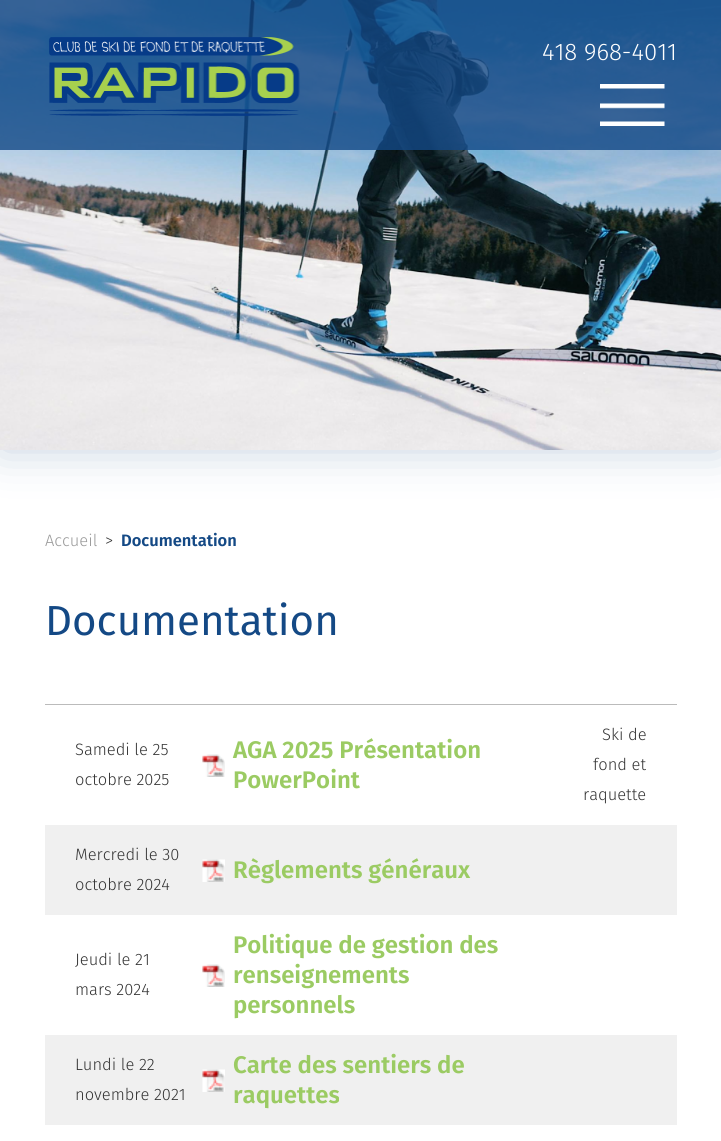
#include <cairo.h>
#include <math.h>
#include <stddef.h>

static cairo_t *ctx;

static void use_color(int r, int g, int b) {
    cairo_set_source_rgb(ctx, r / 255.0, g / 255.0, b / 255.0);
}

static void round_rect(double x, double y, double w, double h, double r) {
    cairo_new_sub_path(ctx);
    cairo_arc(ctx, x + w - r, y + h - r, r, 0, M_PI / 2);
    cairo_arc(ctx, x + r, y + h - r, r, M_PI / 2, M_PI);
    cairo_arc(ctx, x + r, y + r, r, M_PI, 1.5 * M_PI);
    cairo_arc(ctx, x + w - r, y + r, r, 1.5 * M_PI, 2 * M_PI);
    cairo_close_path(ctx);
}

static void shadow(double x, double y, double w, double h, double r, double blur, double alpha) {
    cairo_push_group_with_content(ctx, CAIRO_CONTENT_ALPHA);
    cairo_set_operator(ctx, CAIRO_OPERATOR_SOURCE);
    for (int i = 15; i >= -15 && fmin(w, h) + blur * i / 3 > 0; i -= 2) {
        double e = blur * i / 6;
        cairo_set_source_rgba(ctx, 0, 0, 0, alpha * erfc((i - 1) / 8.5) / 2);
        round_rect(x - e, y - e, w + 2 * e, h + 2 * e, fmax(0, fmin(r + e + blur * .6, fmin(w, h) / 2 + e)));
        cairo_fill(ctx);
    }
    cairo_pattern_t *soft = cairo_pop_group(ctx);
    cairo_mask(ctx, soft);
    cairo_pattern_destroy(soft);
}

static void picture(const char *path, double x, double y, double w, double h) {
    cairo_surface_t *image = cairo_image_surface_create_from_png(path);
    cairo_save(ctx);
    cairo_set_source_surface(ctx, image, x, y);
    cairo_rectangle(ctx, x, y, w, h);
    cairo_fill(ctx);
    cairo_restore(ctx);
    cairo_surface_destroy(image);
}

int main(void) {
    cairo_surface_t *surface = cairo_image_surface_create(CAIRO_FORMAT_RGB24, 721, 1141);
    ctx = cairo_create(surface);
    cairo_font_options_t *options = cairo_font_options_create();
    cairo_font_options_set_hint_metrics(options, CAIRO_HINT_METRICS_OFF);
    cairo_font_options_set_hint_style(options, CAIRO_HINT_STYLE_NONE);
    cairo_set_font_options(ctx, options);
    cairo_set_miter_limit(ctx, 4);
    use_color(255, 255, 255);
    cairo_paint(ctx);
    use_color(20, 73, 133);
    shadow(0, 0, 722, 450, 0, 22.5, 0.25);
    picture("img1.png", 0, 0, 721, 450);
    cairo_set_source_rgba(ctx, 0.078, 0.286, 0.525, 0.8);
    cairo_rectangle(ctx, 0, 0, 721, 150);
    cairo_fill(ctx);
    picture("img2.png", 49, 37, 251, 79);
    cairo_select_font_face(ctx, "Fira Sans Light", CAIRO_FONT_SLANT_NORMAL, CAIRO_FONT_WEIGHT_NORMAL);
    cairo_set_font_size(ctx, 24);
    use_color(255, 255, 255);
    cairo_move_to(ctx, 542, 60);
    cairo_show_text(ctx, "418 968-4011");
    picture("img3.png", 600, 84, 65, 42);
    cairo_set_font_size(ctx, 16.5);
    use_color(153, 153, 153);
    cairo_move_to(ctx, 45, 546);
    cairo_show_text(ctx, "Accueil");
    use_color(51, 51, 51);
    cairo_move_to(ctx, 105, 546);
    cairo_show_text(ctx, ">");
    cairo_select_font_face(ctx, "Fira Sans SemiBold", CAIRO_FONT_SLANT_NORMAL, CAIRO_FONT_WEIGHT_NORMAL);
    use_color(20, 73, 133);
    cairo_move_to(ctx, 121, 546);
    cairo_show_text(ctx, "Documentation");
    cairo_select_font_face(ctx, "Fira Sans", CAIRO_FONT_SLANT_NORMAL, CAIRO_FONT_WEIGHT_NORMAL);
    cairo_set_font_size(ctx, 42);
    cairo_move_to(ctx, 45, 635);
    cairo_show_text(ctx, "Documentation");
    use_color(187, 187, 187);
    cairo_rectangle(ctx, 45, 704, 632, 1);
    cairo_fill(ctx);
    cairo_select_font_face(ctx, "Fira Sans Light", CAIRO_FONT_SLANT_NORMAL, CAIRO_FONT_WEIGHT_NORMAL);
    cairo_set_font_size(ctx, 16.5);
    use_color(51, 51, 51);
    cairo_move_to(ctx, 75, 755);
    cairo_show_text(ctx, "Samedi le 25");
    cairo_move_to(ctx, 75, 785);
    cairo_show_text(ctx, "octobre 2025");
    picture("img4.png", 202, 754, 23, 23);
    cairo_select_font_face(ctx, "Fira Sans SemiBold", CAIRO_FONT_SLANT_NORMAL, CAIRO_FONT_WEIGHT_NORMAL);
    cairo_set_font_size(ctx, 24);
    use_color(155, 203, 99);
    cairo_move_to(ctx, 233, 758);
    cairo_show_text(ctx, "AGA 2025 Présentation");
    cairo_move_to(ctx, 233, 788);
    cairo_show_text(ctx, "PowerPoint");
    cairo_select_font_face(ctx, "Fira Sans Light", CAIRO_FONT_SLANT_NORMAL, CAIRO_FONT_WEIGHT_NORMAL);
    cairo_set_font_size(ctx, 16.5);
    use_color(51, 51, 51);
    cairo_move_to(ctx, 602, 740);
    cairo_show_text(ctx, "Ski de");
    cairo_move_to(ctx, 593, 770);
    cairo_show_text(ctx, "fond et");
    cairo_move_to(ctx, 583, 800);
    cairo_show_text(ctx, "raquette");
    use_color(240, 240, 240);
    cairo_rectangle(ctx, 45, 825, 632, 90);
    cairo_fill(ctx);
    use_color(51, 51, 51);
    cairo_move_to(ctx, 75, 860);
    cairo_show_text(ctx, "Mercredi le 30");
    cairo_move_to(ctx, 75, 890);
    cairo_show_text(ctx, "octobre 2024");
    picture("img5.png", 202, 859, 23, 23);
    cairo_select_font_face(ctx, "Fira Sans SemiBold", CAIRO_FONT_SLANT_NORMAL, CAIRO_FONT_WEIGHT_NORMAL);
    cairo_set_font_size(ctx, 24);
    use_color(155, 203, 99);
    cairo_move_to(ctx, 233, 878);
    cairo_show_text(ctx, "Règlements généraux");
    cairo_select_font_face(ctx, "Fira Sans Light", CAIRO_FONT_SLANT_NORMAL, CAIRO_FONT_WEIGHT_NORMAL);
    cairo_set_font_size(ctx, 16.5);
    use_color(51, 51, 51);
    cairo_move_to(ctx, 75, 965);
    cairo_show_text(ctx, "Jeudi le 21");
    cairo_move_to(ctx, 75, 995);
    cairo_show_text(ctx, "mars 2024");
    picture("img4.png", 202, 964, 23, 23);
    cairo_select_font_face(ctx, "Fira Sans SemiBold", CAIRO_FONT_SLANT_NORMAL, CAIRO_FONT_WEIGHT_NORMAL);
    cairo_set_font_size(ctx, 24);
    use_color(155, 203, 99);
    cairo_move_to(ctx, 233, 953);
    cairo_show_text(ctx, "Politique de gestion des");
    cairo_move_to(ctx, 233, 983);
    cairo_show_text(ctx, "renseignements");
    cairo_move_to(ctx, 233, 1013);
    cairo_show_text(ctx, "personnels");
    use_color(240, 240, 240);
    cairo_rectangle(ctx, 45, 1035, 632, 90);
    cairo_fill(ctx);
    cairo_select_font_face(ctx, "Fira Sans Light", CAIRO_FONT_SLANT_NORMAL, CAIRO_FONT_WEIGHT_NORMAL);
    cairo_set_font_size(ctx, 16.5);
    use_color(51, 51, 51);
    cairo_move_to(ctx, 75, 1070);
    cairo_show_text(ctx, "Lundi le 22");
    cairo_move_to(ctx, 75, 1100);
    cairo_show_text(ctx, "novembre 2021");
    picture("img5.png", 202, 1069, 23, 23);
    cairo_select_font_face(ctx, "Fira Sans SemiBold", CAIRO_FONT_SLANT_NORMAL, CAIRO_FONT_WEIGHT_NORMAL);
    cairo_set_font_size(ctx, 24);
    use_color(155, 203, 99);
    cairo_move_to(ctx, 233, 1073);
    cairo_show_text(ctx, "Carte des sentiers de");
    cairo_move_to(ctx, 233, 1103);
    cairo_show_text(ctx, "raquettes");
    cairo_surface_write_to_png(surface, "result.png");
    cairo_font_options_destroy(options);
    cairo_destroy(ctx);
    cairo_surface_destroy(surface);
    return 0;
}
